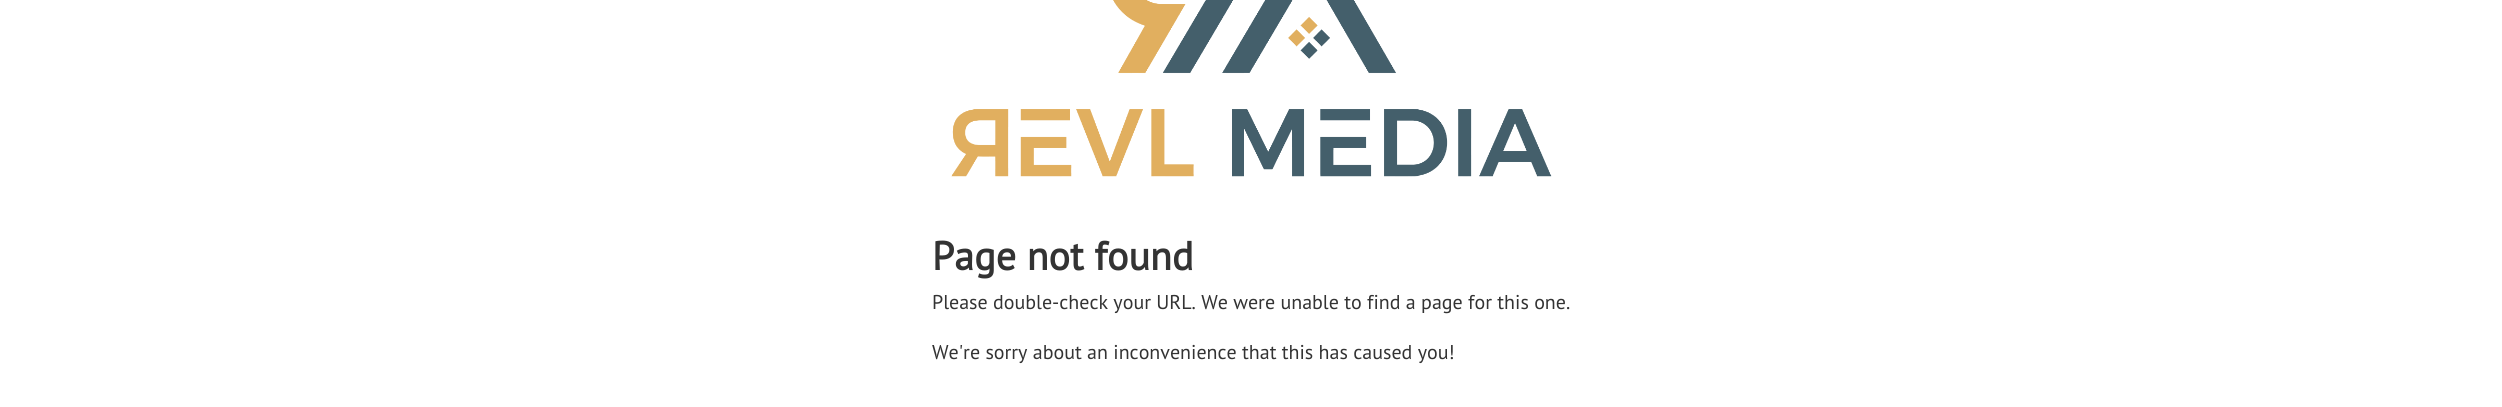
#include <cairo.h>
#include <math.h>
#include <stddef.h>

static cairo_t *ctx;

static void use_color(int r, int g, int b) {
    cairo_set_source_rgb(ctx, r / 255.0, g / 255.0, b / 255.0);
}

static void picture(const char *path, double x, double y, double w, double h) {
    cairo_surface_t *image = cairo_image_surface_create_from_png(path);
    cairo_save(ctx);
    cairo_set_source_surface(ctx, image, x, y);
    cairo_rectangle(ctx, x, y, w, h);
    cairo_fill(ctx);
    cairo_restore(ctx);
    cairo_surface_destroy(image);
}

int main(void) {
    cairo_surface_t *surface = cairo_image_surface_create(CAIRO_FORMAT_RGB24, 2502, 407);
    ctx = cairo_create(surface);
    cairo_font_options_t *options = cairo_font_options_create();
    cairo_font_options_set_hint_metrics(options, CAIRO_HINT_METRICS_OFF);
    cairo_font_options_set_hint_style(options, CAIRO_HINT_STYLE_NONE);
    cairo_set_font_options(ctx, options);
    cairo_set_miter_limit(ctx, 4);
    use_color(255, 255, 255);
    cairo_paint(ctx);
    picture("img1.png", 951, 0, 601, 177);
    cairo_select_font_face(ctx, "PT Sans", CAIRO_FONT_SLANT_NORMAL, CAIRO_FONT_WEIGHT_BOLD);
    cairo_set_font_size(ctx, 40);
    use_color(51, 51, 51);
    cairo_move_to(ctx, 932, 270);
    cairo_show_text(ctx, "Page not found");
    cairo_select_font_face(ctx, "PT Sans", CAIRO_FONT_SLANT_NORMAL, CAIRO_FONT_WEIGHT_NORMAL);
    cairo_set_font_size(ctx, 20);
    cairo_move_to(ctx, 932, 309);
    cairo_show_text(ctx, "Please double-check your URL. We were unable to find a page for this one.");
    cairo_move_to(ctx, 932, 359);
    cairo_show_text(ctx, "We're sorry about an inconvenience that this has caused you!");
    cairo_surface_write_to_png(surface, "result.png");
    cairo_font_options_destroy(options);
    cairo_destroy(ctx);
    cairo_surface_destroy(surface);
    return 0;
}
